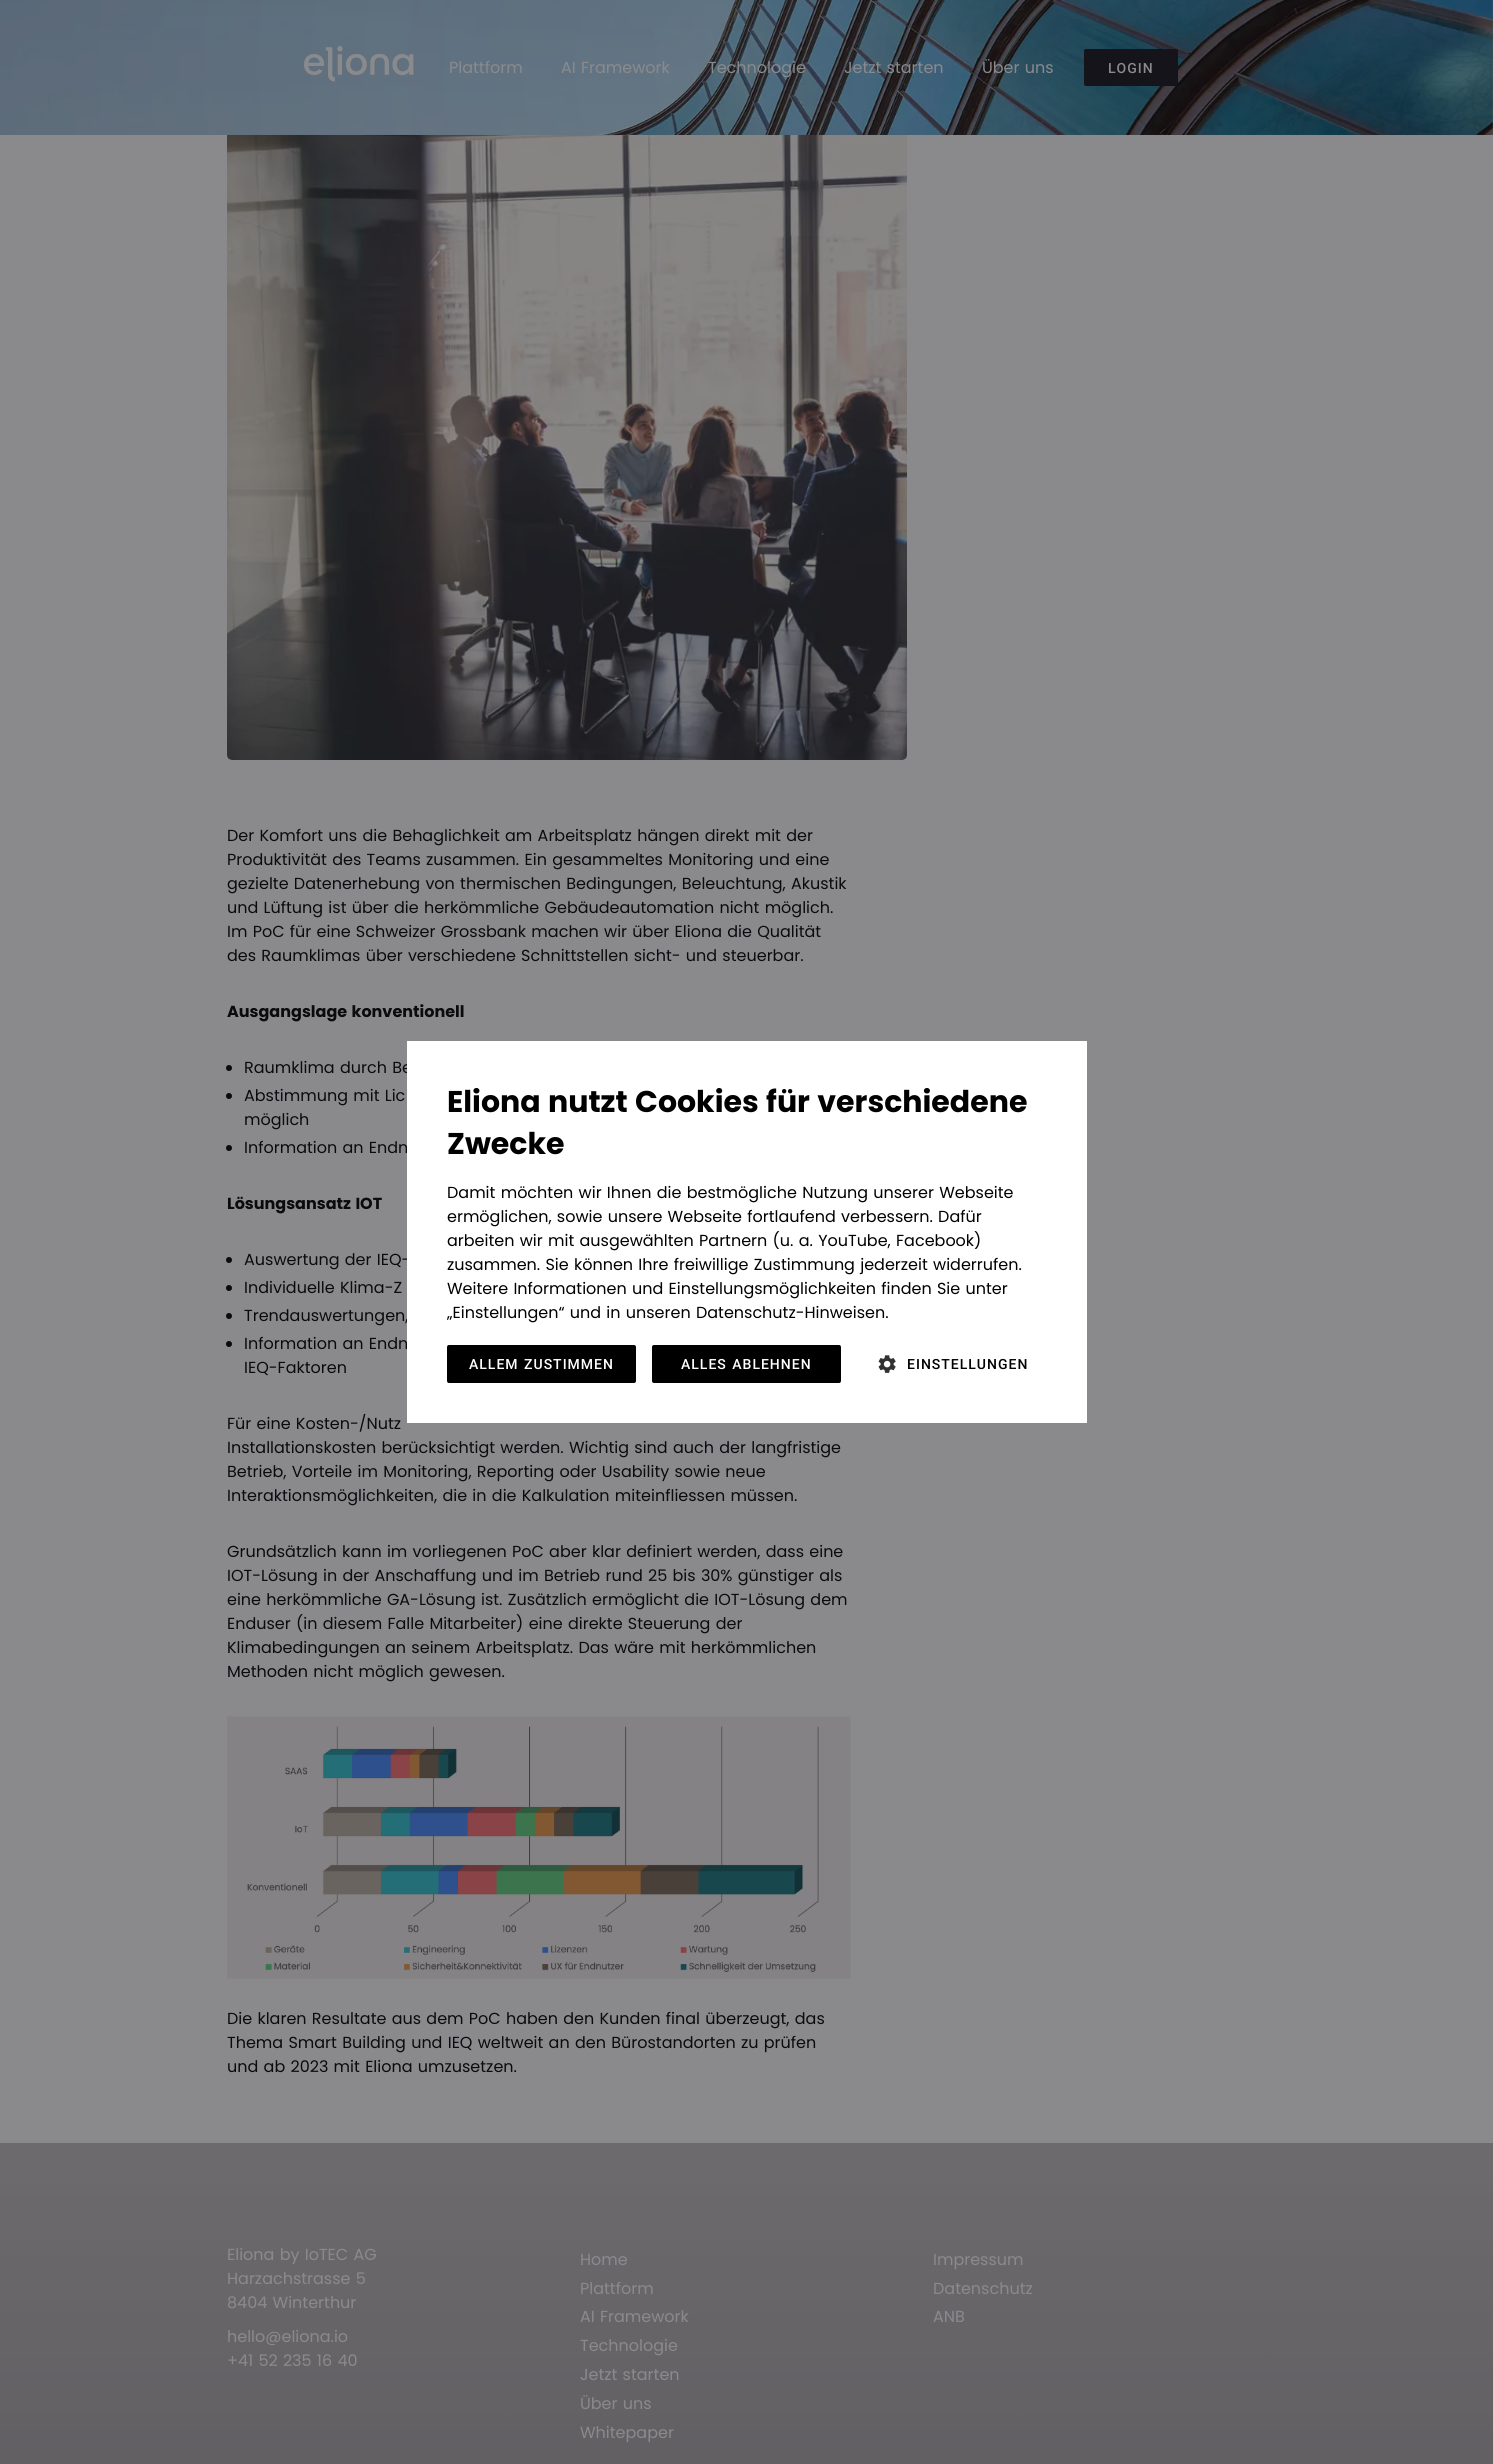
#include <cairo.h>
#include <math.h>
#include <stddef.h>

static cairo_t *ctx;

static void use_color(int r, int g, int b) {
    cairo_set_source_rgb(ctx, r / 255.0, g / 255.0, b / 255.0);
}

static void spaced_text(double x, double y, const char *s, double letter, double word) {
    cairo_move_to(ctx, x, y);
    while (*s) {
        char ch[5] = {0};
        int n = 0;
        do ch[n++] = *s++; while ((*s & 0xC0) == 0x80);
        cairo_show_text(ctx, ch);
        cairo_rel_move_to(ctx, letter + word * (*ch == ' '), 0);
    }
}

static void round_rect(double x, double y, double w, double h, double r) {
    cairo_new_sub_path(ctx);
    cairo_arc(ctx, x + w - r, y + h - r, r, 0, M_PI / 2);
    cairo_arc(ctx, x + r, y + h - r, r, M_PI / 2, M_PI);
    cairo_arc(ctx, x + r, y + r, r, M_PI, 1.5 * M_PI);
    cairo_arc(ctx, x + w - r, y + r, r, 1.5 * M_PI, 2 * M_PI);
    cairo_close_path(ctx);
}

static void picture(const char *path, double x, double y, double w, double h) {
    cairo_surface_t *image = cairo_image_surface_create_from_png(path);
    cairo_save(ctx);
    cairo_set_source_surface(ctx, image, x, y);
    cairo_rectangle(ctx, x, y, w, h);
    cairo_fill(ctx);
    cairo_restore(ctx);
    cairo_surface_destroy(image);
}

int main(void) {
    cairo_surface_t *surface = cairo_image_surface_create(CAIRO_FORMAT_RGB24, 1493, 2464);
    ctx = cairo_create(surface);
    cairo_font_options_t *options = cairo_font_options_create();
    cairo_font_options_set_hint_metrics(options, CAIRO_HINT_METRICS_OFF);
    cairo_font_options_set_hint_style(options, CAIRO_HINT_STYLE_NONE);
    cairo_set_font_options(ctx, options);
    cairo_set_miter_limit(ctx, 4);
    cairo_pattern_t *gradient;
    use_color(138, 138, 141);
    cairo_paint(ctx);
    picture("img4.png", 227, 134, 680, 626);
    picture("img2.png", 0, 0, 1493, 135);
    picture("img3.png", 0, 0, 1493, 135);
    gradient = cairo_pattern_create_radial(747, 68, 0, 747, 68, 750);
    cairo_pattern_add_color_stop_rgba(gradient, 0, 0.043, 0.039, 0.051, 0);
    cairo_pattern_add_color_stop_rgba(gradient, 0.9, 0.043, 0.039, 0.051, 0.1);
    cairo_set_source(ctx, gradient);
    cairo_pattern_destroy(gradient);
    cairo_rectangle(ctx, 0, 0, 1493, 135);
    cairo_fill(ctx);
    picture("img1.png", 304, 46, 110, 36);
    cairo_select_font_face(ctx, "Poppins", CAIRO_FONT_SLANT_NORMAL, CAIRO_FONT_WEIGHT_NORMAL);
    cairo_set_font_size(ctx, 16);
    use_color(138, 138, 141);
    cairo_move_to(ctx, 449, 73);
    cairo_show_text(ctx, "Plattform");
    spaced_text(561, 73, "AI Framework", 0, 1);
    cairo_move_to(ctx, 708, 73);
    cairo_show_text(ctx, "Technologie");
    spaced_text(844, 73, "Jetzt starten", 0, 1);
    spaced_text(982, 73, "Über uns", 0, 1);
    use_color(21, 20, 26);
    round_rect(1084, 49, 94, 37, 2);
    cairo_fill(ctx);
    cairo_select_font_face(ctx, "Roboto Medium", CAIRO_FONT_SLANT_NORMAL, CAIRO_FONT_WEIGHT_NORMAL);
    cairo_set_font_size(ctx, 14);
    use_color(138, 138, 141);
    spaced_text(1108, 73, "LOGIN", 1, 0);
    cairo_select_font_face(ctx, "Poppins", CAIRO_FONT_SLANT_NORMAL, CAIRO_FONT_WEIGHT_NORMAL);
    cairo_set_font_size(ctx, 16);
    use_color(11, 10, 13);
    spaced_text(227, 841, "Der Komfort uns die Behaglichkeit am Arbeitsplatz hängen direkt mit der", 0, 1);
    spaced_text(227, 865, "Produktivität des Teams zusammen. Ein gesammeltes Monitoring und eine", 0, 1);
    spaced_text(227, 889, "gezielte Datenerhebung von thermischen Bedingungen, Beleuchtung, Akustik", 0, 1);
    spaced_text(227, 913, "und Lüftung ist über die herkömmliche Gebäudeautomation nicht möglich.", 0, 1);
    spaced_text(227, 937, "Im PoC für eine Schweizer Grossbank machen wir über Eliona die Qualität", 0, 1);
    spaced_text(227, 961, "des Raumklimas über verschiedene Schnittstellen sicht- und steuerbar.", 0, 1);
    cairo_select_font_face(ctx, "Poppins", CAIRO_FONT_SLANT_NORMAL, CAIRO_FONT_WEIGHT_BOLD);
    spaced_text(227, 1017, "Ausgangslage konventionell", 0, 1);
    cairo_new_path(ctx);
    cairo_arc(ctx, 229, 1068, 3, 0, 2 * M_PI);
    cairo_fill(ctx);
    cairo_select_font_face(ctx, "Poppins", CAIRO_FONT_SLANT_NORMAL, CAIRO_FONT_WEIGHT_NORMAL);
    spaced_text(244, 1073, "Raumklima durch Be", 0, 1);
    cairo_new_path(ctx);
    cairo_arc(ctx, 229, 1096, 3, 0, 2 * M_PI);
    cairo_fill(ctx);
    spaced_text(244, 1101, "Abstimmung mit Lic", 0, 1);
    cairo_move_to(ctx, 244, 1125);
    cairo_show_text(ctx, "möglich");
    cairo_new_path(ctx);
    cairo_arc(ctx, 229, 1148, 3, 0, 2 * M_PI);
    cairo_fill(ctx);
    spaced_text(244, 1153, "Information an Endn", 0, 1);
    cairo_select_font_face(ctx, "Poppins", CAIRO_FONT_SLANT_NORMAL, CAIRO_FONT_WEIGHT_BOLD);
    spaced_text(227, 1209, "Lösungsansatz IOT", 0, 1);
    cairo_new_path(ctx);
    cairo_arc(ctx, 229, 1260, 3, 0, 2 * M_PI);
    cairo_fill(ctx);
    cairo_select_font_face(ctx, "Poppins", CAIRO_FONT_SLANT_NORMAL, CAIRO_FONT_WEIGHT_NORMAL);
    spaced_text(244, 1265, "Auswertung der IEQ-", 0, 1);
    cairo_new_path(ctx);
    cairo_arc(ctx, 229, 1288, 3, 0, 2 * M_PI);
    cairo_fill(ctx);
    spaced_text(244, 1293, "Individuelle Klima-Z", 0, 1);
    cairo_new_path(ctx);
    cairo_arc(ctx, 229, 1316, 3, 0, 2 * M_PI);
    cairo_fill(ctx);
    spaced_text(244, 1321, "Trendauswertungen,", 0, 1);
    cairo_new_path(ctx);
    cairo_arc(ctx, 229, 1344, 3, 0, 2 * M_PI);
    cairo_fill(ctx);
    spaced_text(244, 1349, "Information an Endn", 0, 1);
    cairo_move_to(ctx, 244, 1373);
    cairo_show_text(ctx, "IEQ-Faktoren");
    spaced_text(227, 1429, "Für eine Kosten-/Nutz", 0, 1);
    spaced_text(227, 1453, "Installationskosten berücksichtigt werden. Wichtig sind auch der langfristige", 0, 1);
    spaced_text(227, 1477, "Betrieb, Vorteile im Monitoring, Reporting oder Usability sowie neue", 0, 1);
    spaced_text(227, 1501, "Interaktionsmöglichkeiten, die in die Kalkulation miteinfliessen müssen.", 0, 1);
    spaced_text(227, 1557, "Grundsätzlich kann im vorliegenen PoC aber klar definiert werden, dass eine", 0, 1);
    spaced_text(227, 1581, "IOT-Lösung in der Anschaffung und im Betrieb rund 25 bis 30% günstiger als", 0, 1);
    spaced_text(227, 1605, "eine herkömmliche GA-Lösung ist. Zusätzlich ermöglicht die IOT-Lösung dem", 0, 1);
    spaced_text(227, 1629, "Enduser (in diesem Falle Mitarbeiter) eine direkte Steuerung der", 0, 1);
    spaced_text(227, 1653, "Klimabedingungen an seinem Arbeitsplatz. Das wäre mit herkömmlichen", 0, 1);
    spaced_text(227, 1677, "Methoden nicht möglich gewesen.", 0, 1);
    picture("img5.png", 227, 1716, 624, 263);
    spaced_text(227, 2024, "Die klaren Resultate aus dem PoC haben den Kunden final überzeugt, das", 0, 1);
    spaced_text(227, 2048, "Thema Smart Building und IEQ weltweit an den Bürostandorten zu prüfen", 0, 1);
    spaced_text(227, 2072, "und ab 2023 mit Eliona umzusetzen.", 0, 1);
    use_color(255, 255, 255);
    cairo_rectangle(ctx, 407, 1041, 680, 382);
    cairo_fill(ctx);
    cairo_select_font_face(ctx, "Poppins", CAIRO_FONT_SLANT_NORMAL, CAIRO_FONT_WEIGHT_BOLD);
    cairo_set_font_size(ctx, 30);
    use_color(0, 0, 0);
    spaced_text(447, 1112, "Eliona nutzt Cookies für verschiedene", 0, 1);
    cairo_move_to(ctx, 447, 1154);
    cairo_show_text(ctx, "Zwecke");
    cairo_select_font_face(ctx, "Poppins", CAIRO_FONT_SLANT_NORMAL, CAIRO_FONT_WEIGHT_NORMAL);
    cairo_set_font_size(ctx, 16);
    spaced_text(447, 1198, "Damit möchten wir Ihnen die bestmögliche Nutzung unserer Webseite", 0, 1);
    spaced_text(447, 1222, "ermöglichen, sowie unsere Webseite fortlaufend verbessern. Dafür", 0, 1);
    spaced_text(447, 1246, "arbeiten wir mit ausgewählten Partnern (u. a. YouTube, Facebook)", 0, 1);
    spaced_text(447, 1270, "zusammen. Sie können Ihre freiwillige Zustimmung jederzeit widerrufen.", 0, 1);
    spaced_text(447, 1294, "Weitere Informationen und Einstellungsmöglichkeiten finden Sie unter", 0, 1);
    spaced_text(447, 1318, "„Einstellungen“ und in unseren Datenschutz-Hinweisen.", 0, 1);
    round_rect(447, 1345, 189, 38, 2);
    cairo_fill(ctx);
    cairo_select_font_face(ctx, "Roboto Medium", CAIRO_FONT_SLANT_NORMAL, CAIRO_FONT_WEIGHT_NORMAL);
    cairo_set_font_size(ctx, 14);
    use_color(255, 255, 255);
    spaced_text(469, 1369, "ALLEM ZUSTIMMEN", 1, 1);
    use_color(0, 0, 0);
    round_rect(652, 1345, 189, 38, 2);
    cairo_fill(ctx);
    use_color(255, 255, 255);
    spaced_text(681, 1369, "ALLES ABLEHNEN", 1, 1);
    picture("img6.png", 878, 1355, 18, 18);
    use_color(0, 0, 0);
    spaced_text(907, 1369, "EINSTELLUNGEN", 1, 0);
    picture("img7.png", 0, 2143, 1493, 321);
    cairo_select_font_face(ctx, "Poppins", CAIRO_FONT_SLANT_NORMAL, CAIRO_FONT_WEIGHT_NORMAL);
    cairo_set_font_size(ctx, 16);
    use_color(138, 138, 141);
    spaced_text(227, 2260, "Eliona by IoTEC AG", 0, 1);
    spaced_text(227, 2284, "Harzachstrasse 5", 0, 1);
    spaced_text(227, 2308, "8404 Winterthur", 0, 1);
    cairo_move_to(ctx, 227, 2342);
    cairo_show_text(ctx, "hello@eliona.io");
    spaced_text(227, 2366, "+41 52 235 16 40", 0, 1);
    cairo_move_to(ctx, 580, 2265);
    cairo_show_text(ctx, "Home");
    cairo_move_to(ctx, 580, 2294);
    cairo_show_text(ctx, "Plattform");
    spaced_text(580, 2322, "AI Framework", 0, 1);
    cairo_move_to(ctx, 580, 2351);
    cairo_show_text(ctx, "Technologie");
    spaced_text(580, 2380, "Jetzt starten", 0, 1);
    spaced_text(580, 2409, "Über uns", 0, 1);
    cairo_move_to(ctx, 580, 2438);
    cairo_show_text(ctx, "Whitepaper");
    cairo_move_to(ctx, 933, 2265);
    cairo_show_text(ctx, "Impressum");
    cairo_move_to(ctx, 933, 2294);
    cairo_show_text(ctx, "Datenschutz");
    cairo_move_to(ctx, 933, 2322);
    cairo_show_text(ctx, "ANB");
    cairo_surface_write_to_png(surface, "result.png");
    cairo_font_options_destroy(options);
    cairo_destroy(ctx);
    cairo_surface_destroy(surface);
    return 0;
}
